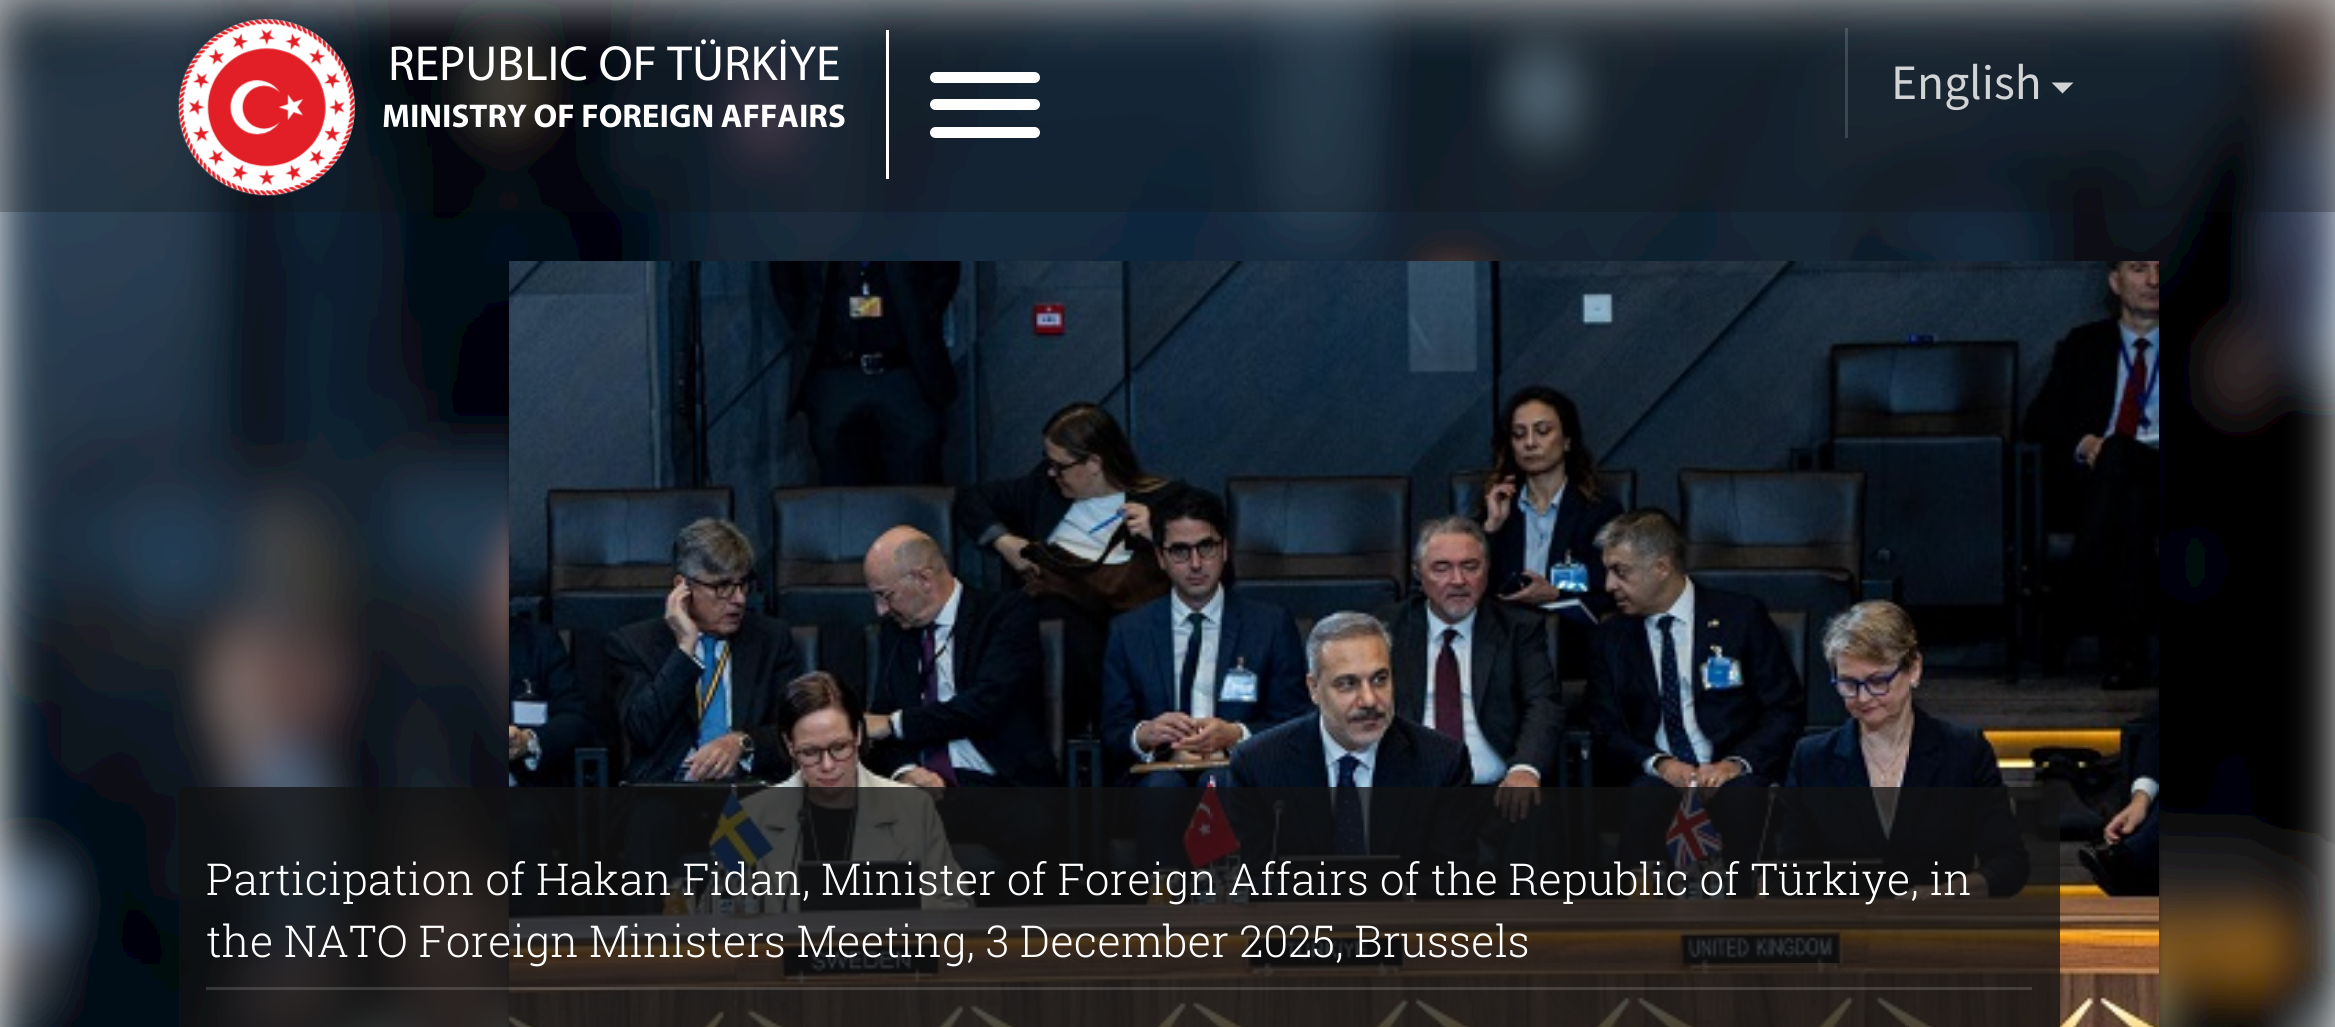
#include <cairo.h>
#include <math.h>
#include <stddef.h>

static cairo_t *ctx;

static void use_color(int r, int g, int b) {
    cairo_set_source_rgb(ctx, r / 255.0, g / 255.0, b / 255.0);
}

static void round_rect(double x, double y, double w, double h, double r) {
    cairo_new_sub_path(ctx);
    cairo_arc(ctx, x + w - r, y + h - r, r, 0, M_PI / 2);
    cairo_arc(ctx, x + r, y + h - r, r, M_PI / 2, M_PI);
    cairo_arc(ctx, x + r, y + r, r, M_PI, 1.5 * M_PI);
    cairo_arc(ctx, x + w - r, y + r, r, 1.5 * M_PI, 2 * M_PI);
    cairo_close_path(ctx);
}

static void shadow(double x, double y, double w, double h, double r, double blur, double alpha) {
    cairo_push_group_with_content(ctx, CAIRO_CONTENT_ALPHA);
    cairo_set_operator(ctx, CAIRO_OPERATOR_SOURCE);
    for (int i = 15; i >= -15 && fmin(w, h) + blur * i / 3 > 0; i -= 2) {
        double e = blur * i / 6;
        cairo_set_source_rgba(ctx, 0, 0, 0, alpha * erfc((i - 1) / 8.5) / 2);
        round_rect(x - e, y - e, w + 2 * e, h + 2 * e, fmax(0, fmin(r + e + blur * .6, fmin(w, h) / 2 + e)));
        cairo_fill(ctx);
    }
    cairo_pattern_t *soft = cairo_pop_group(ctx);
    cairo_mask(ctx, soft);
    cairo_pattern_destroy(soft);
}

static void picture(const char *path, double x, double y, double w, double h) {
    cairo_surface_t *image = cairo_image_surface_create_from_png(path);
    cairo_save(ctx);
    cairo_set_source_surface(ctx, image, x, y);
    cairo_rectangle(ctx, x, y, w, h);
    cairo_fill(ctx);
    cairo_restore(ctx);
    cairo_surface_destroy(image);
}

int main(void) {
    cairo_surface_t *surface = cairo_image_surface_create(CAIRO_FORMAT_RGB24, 2335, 1027);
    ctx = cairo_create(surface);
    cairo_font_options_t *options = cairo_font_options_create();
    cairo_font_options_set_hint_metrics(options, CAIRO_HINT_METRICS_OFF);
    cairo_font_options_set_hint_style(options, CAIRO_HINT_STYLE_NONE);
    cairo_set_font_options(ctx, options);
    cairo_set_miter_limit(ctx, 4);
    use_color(247, 248, 248);
    cairo_paint(ctx);
    picture("img2.png", 0, 0, 2335, 1027);
    cairo_set_source_rgba(ctx, 0.071, 0.071, 0.071, 0.25);
    cairo_rectangle(ctx, 0, 0, 2335, 212);
    cairo_fill(ctx);
    picture("img1.png", 178, 19, 177, 177);
    cairo_select_font_face(ctx, "Myriad", CAIRO_FONT_SLANT_NORMAL, CAIRO_FONT_WEIGHT_NORMAL);
    cairo_set_font_size(ctx, 49.5);
    use_color(255, 255, 255);
    cairo_move_to(ctx, 388, 80);
    cairo_show_text(ctx, "REPUBLIC OF TÜRKİYE");
    cairo_select_font_face(ctx, "Myriad", CAIRO_FONT_SLANT_NORMAL, CAIRO_FONT_WEIGHT_BOLD);
    cairo_set_font_size(ctx, 33);
    cairo_move_to(ctx, 382, 127);
    cairo_show_text(ctx, "MINISTRY OF FOREIGN AFFAIRS");
    cairo_rectangle(ctx, 886, 30, 3, 149);
    cairo_fill(ctx);
    round_rect(930, 72, 110, 11, 5.5);
    cairo_fill(ctx);
    round_rect(930, 99, 110, 11, 5.5);
    cairo_fill(ctx);
    round_rect(930, 127, 110, 11, 5.5);
    cairo_fill(ctx);
    cairo_set_source_rgba(ctx, 1, 1, 1, 0.15);
    cairo_rectangle(ctx, 1845, 28, 3, 110);
    cairo_fill(ctx);
    cairo_select_font_face(ctx, "Source Sans Pro", CAIRO_FONT_SLANT_NORMAL, CAIRO_FONT_WEIGHT_NORMAL);
    cairo_set_font_size(ctx, 49.5);
    use_color(209, 212, 214);
    cairo_move_to(ctx, 1891, 99);
    cairo_show_text(ctx, "English");
    use_color(208, 211, 213);
    cairo_new_path(ctx);
    cairo_move_to(ctx, 2051.5, 82.5);
    cairo_line_to(ctx, 2073.5, 82.5);
    cairo_line_to(ctx, 2062.5, 93.5);
    cairo_close_path(ctx);
    cairo_fill(ctx);
    use_color(0, 0, 0);
    shadow(509, 267, 1650, 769, 0, 3, 0.35);
    picture("img3.png", 509, 261, 1650, 766);
    cairo_set_source_rgba(ctx, 0.071, 0.071, 0.071, 0.75);
    cairo_rectangle(ctx, 179, 787, 1881, 240);
    cairo_fill(ctx);
    cairo_select_font_face(ctx, "Roboto Slab Light", CAIRO_FONT_SLANT_NORMAL, CAIRO_FONT_WEIGHT_NORMAL);
    cairo_set_font_size(ctx, 44);
    use_color(255, 255, 255);
    cairo_move_to(ctx, 206, 895);
    cairo_show_text(ctx, "Participation of Hakan Fidan, Minister of Foreign Affairs of the Republic of Türkiye, in");
    cairo_move_to(ctx, 206, 957);
    cairo_show_text(ctx, "the NATO Foreign Ministers Meeting, 3 December 2025, Brussels");
    cairo_set_source_rgba(ctx, 1, 1, 1, 0.15);
    cairo_rectangle(ctx, 206, 987, 1826, 3);
    cairo_fill(ctx);
    cairo_surface_write_to_png(surface, "result.png");
    cairo_font_options_destroy(options);
    cairo_destroy(ctx);
    cairo_surface_destroy(surface);
    return 0;
}
